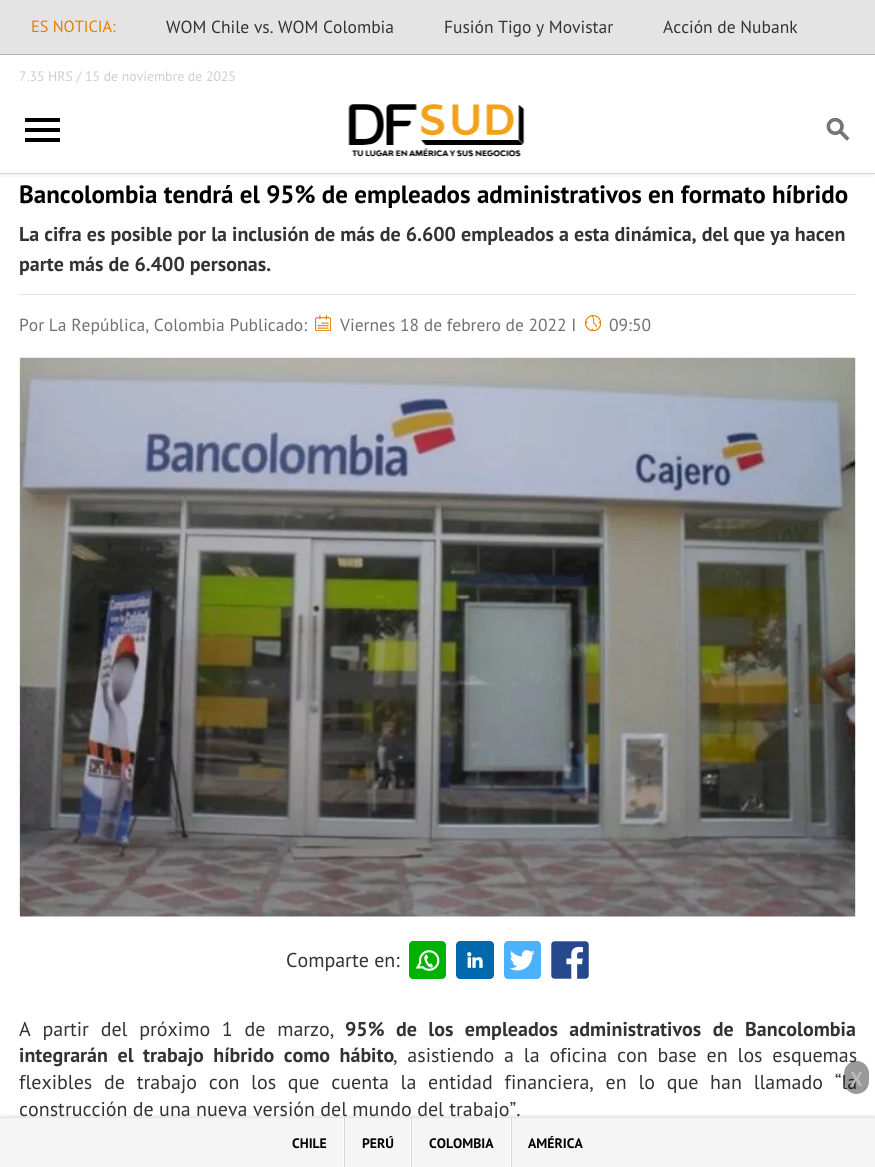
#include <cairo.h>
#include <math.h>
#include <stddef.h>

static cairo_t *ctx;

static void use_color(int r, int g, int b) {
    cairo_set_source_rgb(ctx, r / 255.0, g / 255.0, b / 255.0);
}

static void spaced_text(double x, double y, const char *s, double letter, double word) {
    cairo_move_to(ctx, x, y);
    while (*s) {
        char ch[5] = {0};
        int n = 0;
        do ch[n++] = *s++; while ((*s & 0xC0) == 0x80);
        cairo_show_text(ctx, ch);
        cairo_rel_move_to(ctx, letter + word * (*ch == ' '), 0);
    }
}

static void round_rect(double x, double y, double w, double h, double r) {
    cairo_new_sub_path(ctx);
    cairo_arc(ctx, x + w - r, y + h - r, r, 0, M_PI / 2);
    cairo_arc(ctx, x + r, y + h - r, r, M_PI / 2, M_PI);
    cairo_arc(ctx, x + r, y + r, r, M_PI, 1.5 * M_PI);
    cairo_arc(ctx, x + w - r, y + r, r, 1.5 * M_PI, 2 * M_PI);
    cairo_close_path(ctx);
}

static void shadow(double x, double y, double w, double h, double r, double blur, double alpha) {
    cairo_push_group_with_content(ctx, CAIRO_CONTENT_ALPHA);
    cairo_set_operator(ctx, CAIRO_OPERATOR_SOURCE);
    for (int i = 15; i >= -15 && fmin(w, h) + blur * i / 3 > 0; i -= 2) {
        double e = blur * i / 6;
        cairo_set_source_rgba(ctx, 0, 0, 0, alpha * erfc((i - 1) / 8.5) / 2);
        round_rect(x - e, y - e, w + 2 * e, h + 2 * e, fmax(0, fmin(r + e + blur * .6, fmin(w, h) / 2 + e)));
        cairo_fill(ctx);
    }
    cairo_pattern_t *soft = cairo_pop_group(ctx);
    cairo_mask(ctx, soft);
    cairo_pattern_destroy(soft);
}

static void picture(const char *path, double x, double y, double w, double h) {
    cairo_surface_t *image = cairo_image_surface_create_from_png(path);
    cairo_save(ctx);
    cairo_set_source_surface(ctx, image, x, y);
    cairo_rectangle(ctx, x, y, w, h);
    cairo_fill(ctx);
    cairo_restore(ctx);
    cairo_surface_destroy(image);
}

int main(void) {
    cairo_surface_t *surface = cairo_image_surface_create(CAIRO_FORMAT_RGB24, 875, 1167);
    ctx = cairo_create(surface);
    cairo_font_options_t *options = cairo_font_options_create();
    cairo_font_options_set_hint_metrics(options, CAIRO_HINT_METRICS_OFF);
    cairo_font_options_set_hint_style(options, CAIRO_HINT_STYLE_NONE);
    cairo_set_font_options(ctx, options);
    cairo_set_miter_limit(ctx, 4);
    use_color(255, 255, 255);
    cairo_paint(ctx);
    cairo_save(ctx);
    cairo_rectangle(ctx, 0, 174, 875, 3);
    cairo_clip(ctx);
    use_color(0, 0, 0);
    shadow(0, 3, 875, 173, 0, 2.5, 0.06);
    cairo_restore(ctx);
    use_color(216, 216, 216);
    cairo_rectangle(ctx, 0, 173, 875, 1);
    cairo_fill(ctx);
    use_color(228, 228, 228);
    cairo_rectangle(ctx, 0, 0, 875, 54);
    cairo_fill(ctx);
    use_color(181, 181, 181);
    cairo_rectangle(ctx, 0, 54, 875, 1);
    cairo_fill(ctx);
    cairo_select_font_face(ctx, "PT Sans", CAIRO_FONT_SLANT_NORMAL, CAIRO_FONT_WEIGHT_NORMAL);
    cairo_set_font_size(ctx, 16.25);
    use_color(230, 125, 1);
    cairo_move_to(ctx, 31, 32);
    cairo_show_text(ctx, "ES NOTICIA:");
    cairo_set_font_size(ctx, 17.5);
    use_color(51, 51, 51);
    cairo_move_to(ctx, 166, 33);
    cairo_show_text(ctx, "WOM Chile vs. WOM Colombia");
    cairo_move_to(ctx, 444, 33);
    cairo_show_text(ctx, "Fusión Tigo y Movistar");
    cairo_move_to(ctx, 663, 33);
    cairo_show_text(ctx, "Acción de Nubank");
    cairo_set_font_size(ctx, 13.75);
    use_color(204, 205, 208);
    cairo_move_to(ctx, 19, 81);
    cairo_show_text(ctx, "7.35 HRS / 15 de noviembre de 2025");
    use_color(0, 0, 0);
    cairo_rectangle(ctx, 25, 118, 35, 4);
    cairo_fill(ctx);
    cairo_rectangle(ctx, 25, 128, 35, 4);
    cairo_fill(ctx);
    cairo_rectangle(ctx, 25, 138, 35, 4);
    cairo_fill(ctx);
    picture("img1.png", 348, 104, 177, 53);
    picture("img2.png", 826, 118, 24, 23);
    use_color(230, 230, 230);
    cairo_rectangle(ctx, 19, 294, 837, 1);
    cairo_fill(ctx);
    cairo_select_font_face(ctx, "PT Sans", CAIRO_FONT_SLANT_NORMAL, CAIRO_FONT_WEIGHT_BOLD);
    cairo_set_font_size(ctx, 25);
    use_color(0, 0, 0);
    cairo_move_to(ctx, 19, 203);
    cairo_show_text(ctx, "Bancolombia tendrá el 95% de empleados administrativos en formato híbrido");
    cairo_set_font_size(ctx, 20);
    use_color(51, 51, 51);
    cairo_move_to(ctx, 19, 241);
    cairo_show_text(ctx, "La cifra es posible por la inclusión de más de 6.600 empleados a esta dinámica, del que ya hacen");
    cairo_move_to(ctx, 19, 271);
    cairo_show_text(ctx, "parte más de 6.400 personas.");
    cairo_select_font_face(ctx, "PT Sans", CAIRO_FONT_SLANT_NORMAL, CAIRO_FONT_WEIGHT_NORMAL);
    cairo_set_font_size(ctx, 17.5);
    use_color(112, 112, 112);
    cairo_move_to(ctx, 19, 331);
    cairo_show_text(ctx, "Por La República, Colombia Publicado:");
    picture("img3.png", 315, 315, 16, 16);
    cairo_move_to(ctx, 340, 331);
    cairo_show_text(ctx, "Viernes 18 de febrero de 2022 I");
    picture("img4.png", 585, 315, 16, 16);
    cairo_move_to(ctx, 609, 331);
    cairo_show_text(ctx, "09:50");
    picture("img5.png", 18, 357, 839, 560);
    cairo_set_font_size(ctx, 20);
    use_color(51, 51, 51);
    cairo_move_to(ctx, 286, 967);
    cairo_show_text(ctx, "Comparte en:");
    picture("img6.png", 409, 941, 37, 38);
    picture("img7.png", 456, 941, 38, 38);
    picture("img8.png", 504, 941, 37, 38);
    picture("img9.png", 551, 941, 38, 38);
    spaced_text(19, 1036, "A partir del próximo 1 de marzo,", 0, 6.4);
    cairo_select_font_face(ctx, "PT Sans", CAIRO_FONT_SLANT_NORMAL, CAIRO_FONT_WEIGHT_BOLD);
    spaced_text(345, 1036, "95% de los empleados administrativos de Bancolombia", 0, 6.4);
    spaced_text(19, 1062, "integrarán el trabajo híbrido como hábito", 0, 4.5);
    cairo_select_font_face(ctx, "PT Sans", CAIRO_FONT_SLANT_NORMAL, CAIRO_FONT_WEIGHT_NORMAL);
    spaced_text(393, 1062, ", asistiendo a la oficina con base en los esquemas", 0, 4.5);
    spaced_text(19, 1089, "flexibles de trabajo con los que cuenta la entidad financiera, en lo que han llamado “la", 0, 6.4);
    cairo_move_to(ctx, 19, 1116);
    cairo_show_text(ctx, "construcción de una nueva versión del mundo del trabajo”.");
    cairo_set_source_rgba(ctx, 0, 0, 0, 0.4);
    round_rect(844, 1061, 25, 33, 12.5);
    cairo_fill(ctx);
    cairo_select_font_face(ctx, "PT Sans", CAIRO_FONT_SLANT_NORMAL, CAIRO_FONT_WEIGHT_BOLD);
    use_color(186, 186, 186);
    cairo_move_to(ctx, 850, 1086);
    cairo_show_text(ctx, "X");
    use_color(0, 0, 0);
    shadow(0, 1118, 875, 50, 0, 2.5, 0.25);
    use_color(245, 245, 245);
    cairo_rectangle(ctx, 0, 1118, 875, 49);
    cairo_fill(ctx);
    use_color(255, 255, 255);
    cairo_rectangle(ctx, 343, 1118, 1, 49);
    cairo_fill(ctx);
    cairo_set_font_size(ctx, 13.75);
    use_color(0, 0, 0);
    cairo_move_to(ctx, 292, 1148);
    cairo_show_text(ctx, "CHILE");
    use_color(255, 255, 255);
    cairo_rectangle(ctx, 410, 1118, 1, 49);
    cairo_fill(ctx);
    use_color(214, 216, 225);
    cairo_rectangle(ctx, 344, 1118, 1, 49);
    cairo_fill(ctx);
    use_color(0, 0, 0);
    cairo_move_to(ctx, 362, 1148);
    cairo_show_text(ctx, "PERÚ");
    use_color(255, 255, 255);
    cairo_rectangle(ctx, 510, 1118, 1, 49);
    cairo_fill(ctx);
    use_color(214, 216, 225);
    cairo_rectangle(ctx, 411, 1118, 1, 49);
    cairo_fill(ctx);
    use_color(0, 0, 0);
    cairo_move_to(ctx, 429, 1148);
    cairo_show_text(ctx, "COLOMBIA");
    use_color(214, 216, 225);
    cairo_rectangle(ctx, 511, 1118, 1, 49);
    cairo_fill(ctx);
    use_color(0, 0, 0);
    cairo_move_to(ctx, 528, 1148);
    cairo_show_text(ctx, "AMÉRICA");
    cairo_surface_write_to_png(surface, "result.png");
    cairo_font_options_destroy(options);
    cairo_destroy(ctx);
    cairo_surface_destroy(surface);
    return 0;
}
